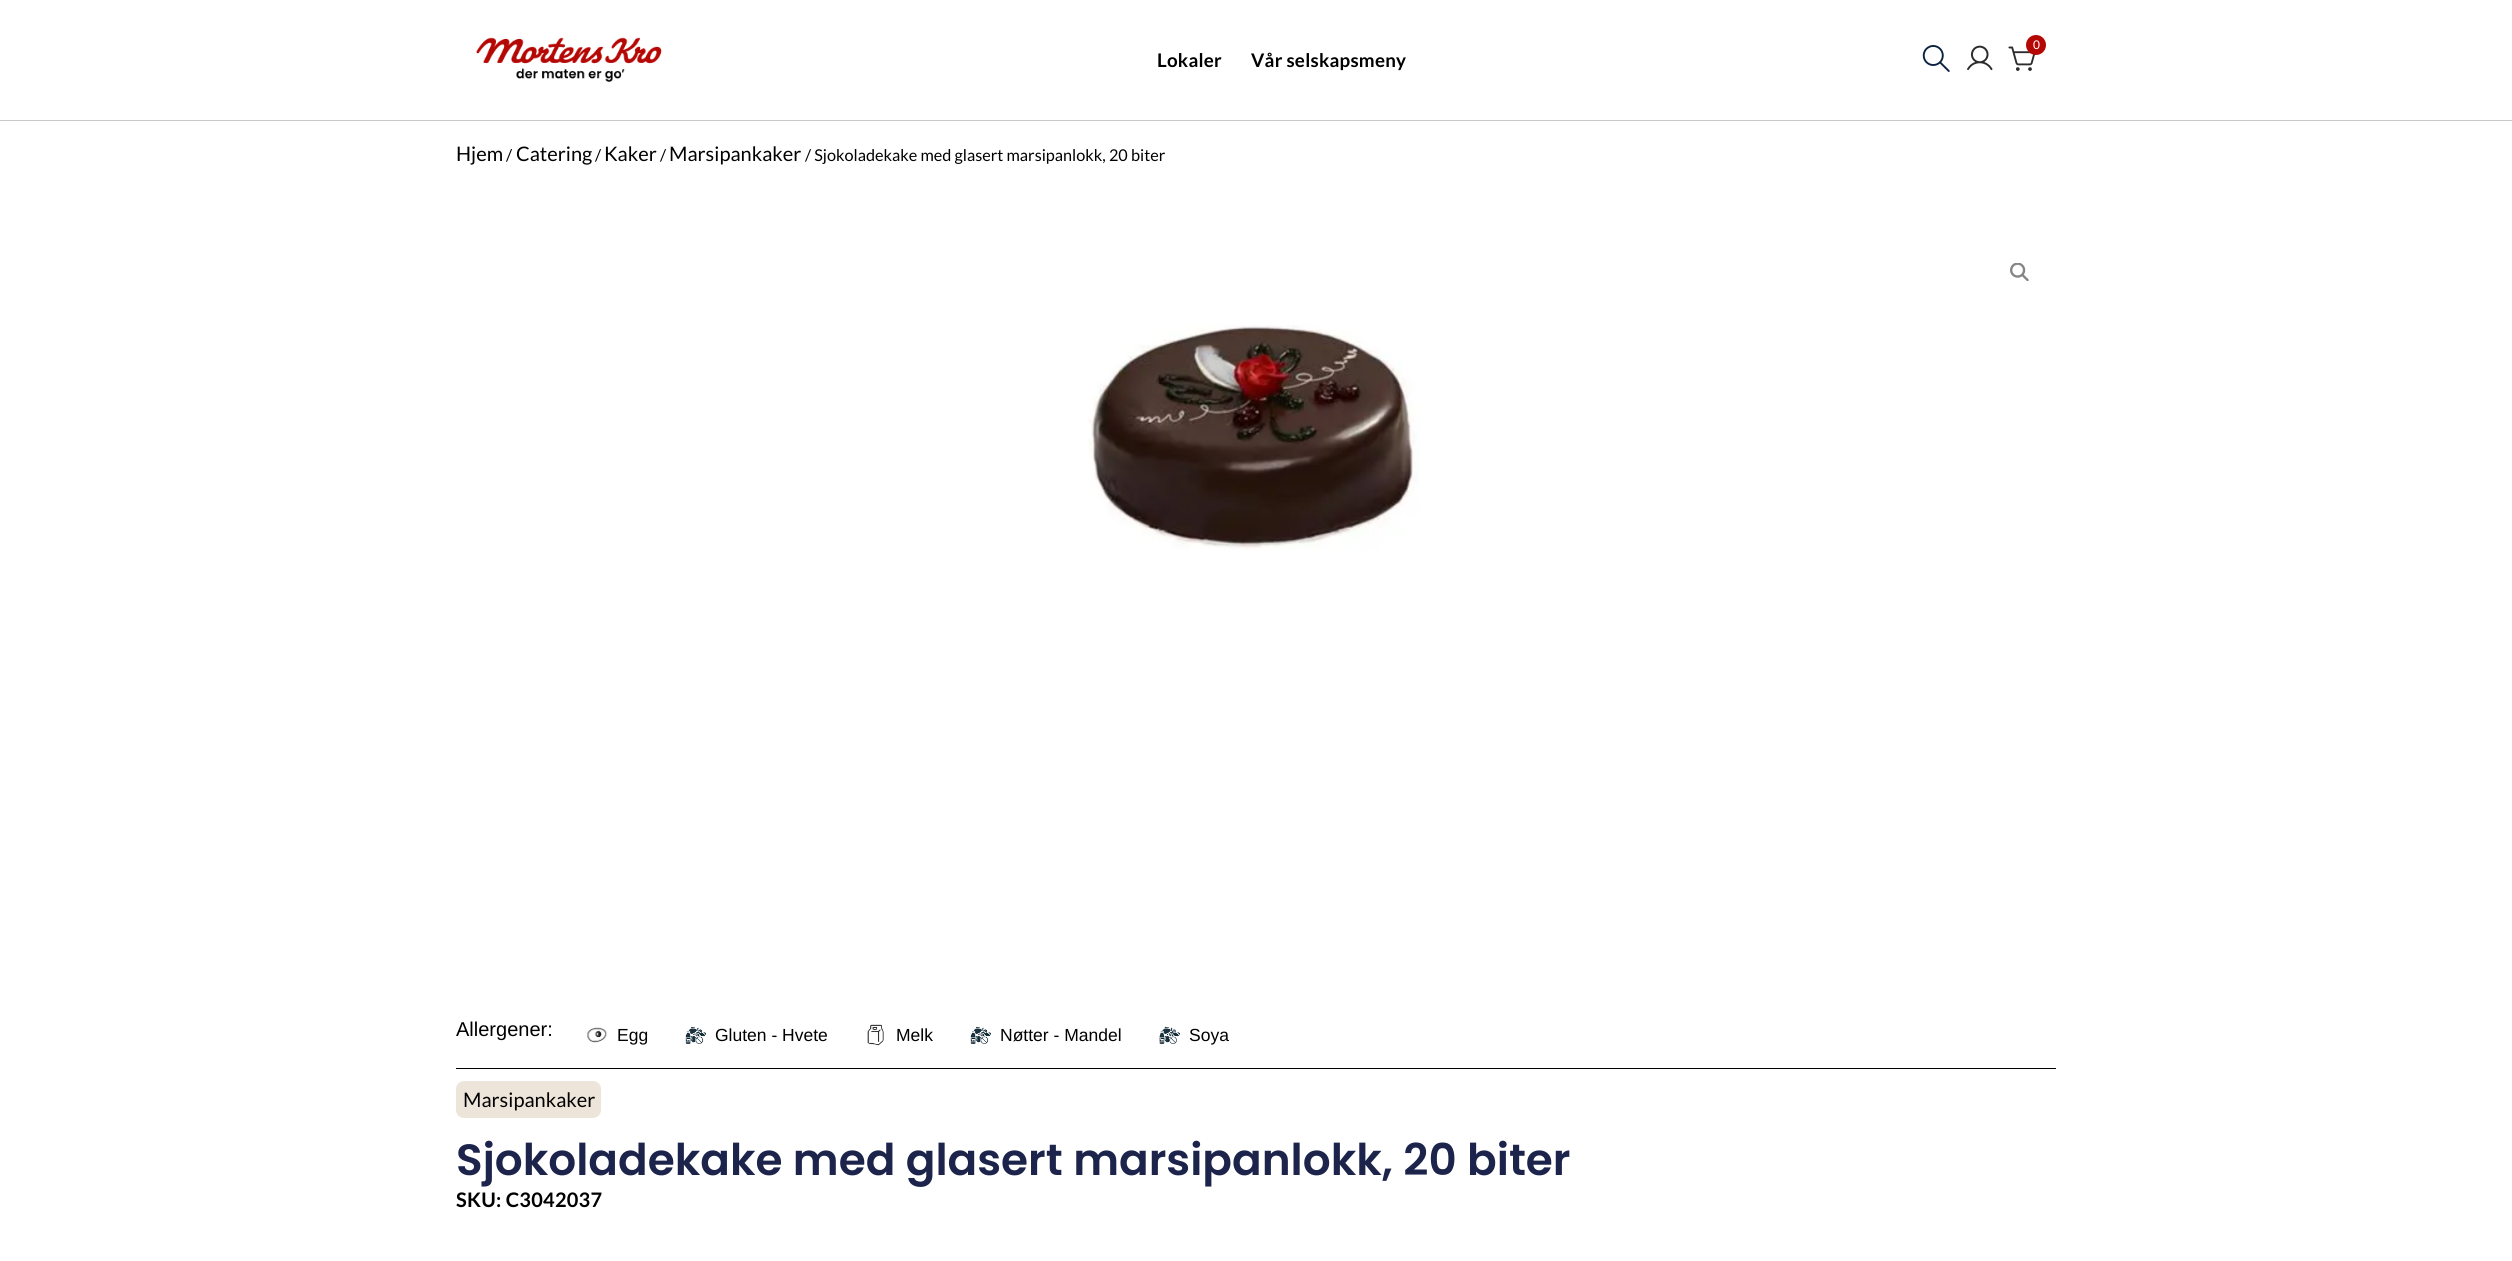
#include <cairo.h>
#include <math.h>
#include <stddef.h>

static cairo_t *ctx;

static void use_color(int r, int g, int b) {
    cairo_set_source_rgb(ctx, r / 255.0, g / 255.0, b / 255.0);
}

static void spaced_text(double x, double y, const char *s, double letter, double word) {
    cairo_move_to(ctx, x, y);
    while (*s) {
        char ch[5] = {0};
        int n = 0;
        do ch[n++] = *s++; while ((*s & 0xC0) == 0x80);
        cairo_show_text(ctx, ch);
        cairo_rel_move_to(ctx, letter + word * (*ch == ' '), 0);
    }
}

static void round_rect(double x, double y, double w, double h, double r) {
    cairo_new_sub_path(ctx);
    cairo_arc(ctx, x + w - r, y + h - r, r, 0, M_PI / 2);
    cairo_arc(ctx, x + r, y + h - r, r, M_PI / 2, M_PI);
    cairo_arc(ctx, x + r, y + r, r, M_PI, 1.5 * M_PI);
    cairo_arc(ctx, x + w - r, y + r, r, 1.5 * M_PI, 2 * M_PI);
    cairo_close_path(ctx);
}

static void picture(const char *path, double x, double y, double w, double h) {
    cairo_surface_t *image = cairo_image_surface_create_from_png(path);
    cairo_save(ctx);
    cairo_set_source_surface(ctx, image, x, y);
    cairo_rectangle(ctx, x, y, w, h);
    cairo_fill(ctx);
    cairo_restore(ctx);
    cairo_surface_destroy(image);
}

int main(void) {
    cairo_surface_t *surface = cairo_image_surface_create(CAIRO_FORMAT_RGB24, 2512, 1261);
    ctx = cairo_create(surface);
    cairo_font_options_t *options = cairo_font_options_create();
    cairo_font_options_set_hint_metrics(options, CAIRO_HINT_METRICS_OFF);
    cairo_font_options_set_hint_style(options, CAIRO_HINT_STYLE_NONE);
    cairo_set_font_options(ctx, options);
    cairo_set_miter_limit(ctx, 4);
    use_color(255, 255, 255);
    cairo_paint(ctx);
    use_color(200, 200, 200);
    cairo_rectangle(ctx, 0, 120, 2512, 1);
    cairo_fill(ctx);
    picture("img1.png", 476, 37, 186, 45);
    picture("img2.png", 1922, 45, 28, 27);
    picture("img3.png", 1967, 45, 26, 26);
    picture("img4.png", 2008, 46, 28, 25);
    use_color(181, 8, 5);
    cairo_arc(ctx, 2036, 45, 10, 0, 2 * M_PI);
    cairo_fill(ctx);
    cairo_select_font_face(ctx, "Lato", CAIRO_FONT_SLANT_NORMAL, CAIRO_FONT_WEIGHT_NORMAL);
    cairo_set_font_size(ctx, 12);
    use_color(255, 255, 255);
    cairo_move_to(ctx, 2033, 49);
    cairo_show_text(ctx, "0");
    cairo_select_font_face(ctx, "Lato", CAIRO_FONT_SLANT_NORMAL, CAIRO_FONT_WEIGHT_BOLD);
    cairo_set_font_size(ctx, 18.75);
    use_color(0, 0, 0);
    spaced_text(1157, 67, "Lokaler", 0.25, 0);
    spaced_text(1251, 67, "Vår selskapsmeny", 0.25, 0);
    cairo_select_font_face(ctx, "Lato", CAIRO_FONT_SLANT_NORMAL, CAIRO_FONT_WEIGHT_NORMAL);
    cairo_set_font_size(ctx, 20);
    cairo_move_to(ctx, 456, 161);
    cairo_show_text(ctx, "Hjem");
    cairo_set_font_size(ctx, 16.25);
    cairo_move_to(ctx, 506, 161);
    cairo_show_text(ctx, "/");
    cairo_set_font_size(ctx, 20);
    cairo_move_to(ctx, 516, 161);
    cairo_show_text(ctx, "Catering");
    cairo_set_font_size(ctx, 16.25);
    cairo_move_to(ctx, 595, 161);
    cairo_show_text(ctx, "/");
    cairo_set_font_size(ctx, 20);
    cairo_move_to(ctx, 604, 161);
    cairo_show_text(ctx, "Kaker");
    cairo_set_font_size(ctx, 16.25);
    cairo_move_to(ctx, 660, 161);
    cairo_show_text(ctx, "/");
    cairo_set_font_size(ctx, 20);
    cairo_move_to(ctx, 669, 161);
    cairo_show_text(ctx, "Marsipankaker");
    cairo_set_font_size(ctx, 16.25);
    cairo_move_to(ctx, 805, 161);
    cairo_show_text(ctx, "/ Sjokoladekake med glasert marsipanlokk, 20 biter");
    picture("img5.png", 2010, 263, 19, 18);
    picture("img6.png", 1088, 325, 332, 225);
    cairo_select_font_face(ctx, "Liberation Sans", CAIRO_FONT_SLANT_NORMAL, CAIRO_FONT_WEIGHT_NORMAL);
    cairo_set_font_size(ctx, 20);
    cairo_move_to(ctx, 456, 1036);
    cairo_show_text(ctx, "Allergener:");
    picture("img7.png", 587, 1027, 20, 16);
    cairo_set_font_size(ctx, 17.5);
    cairo_move_to(ctx, 617, 1041);
    cairo_show_text(ctx, "Egg");
    picture("img8.png", 685, 1026, 21, 18);
    cairo_move_to(ctx, 715, 1041);
    cairo_show_text(ctx, "Gluten - Hvete");
    picture("img9.png", 867, 1024, 17, 22);
    cairo_move_to(ctx, 896, 1041);
    cairo_show_text(ctx, "Melk");
    picture("img8.png", 970, 1026, 21, 18);
    cairo_move_to(ctx, 1000, 1041);
    cairo_show_text(ctx, "Nøtter - Mandel");
    picture("img10.png", 1159, 1026, 21, 18);
    cairo_move_to(ctx, 1189, 1041);
    cairo_show_text(ctx, "Soya");
    cairo_rectangle(ctx, 456, 1068, 1600, 1);
    cairo_fill(ctx);
    use_color(238, 229, 218);
    round_rect(456, 1081, 145, 37, 8);
    cairo_fill(ctx);
    cairo_select_font_face(ctx, "Lato", CAIRO_FONT_SLANT_NORMAL, CAIRO_FONT_WEIGHT_NORMAL);
    cairo_set_font_size(ctx, 20);
    use_color(0, 0, 0);
    cairo_move_to(ctx, 463, 1107);
    cairo_show_text(ctx, "Marsipankaker");
    cairo_select_font_face(ctx, "Poppins SemiBold", CAIRO_FONT_SLANT_NORMAL, CAIRO_FONT_WEIGHT_NORMAL);
    cairo_set_font_size(ctx, 43.75);
    use_color(28, 36, 75);
    cairo_move_to(ctx, 456, 1175);
    cairo_show_text(ctx, "Sjokoladekake med glasert marsipanlokk, 20 biter");
    cairo_select_font_face(ctx, "Lato", CAIRO_FONT_SLANT_NORMAL, CAIRO_FONT_WEIGHT_BOLD);
    cairo_set_font_size(ctx, 20);
    use_color(0, 0, 0);
    spaced_text(456, 1207, "SKU: C3042037", 0.25, 0);
    cairo_surface_write_to_png(surface, "result.png");
    cairo_font_options_destroy(options);
    cairo_destroy(ctx);
    cairo_surface_destroy(surface);
    return 0;
}
